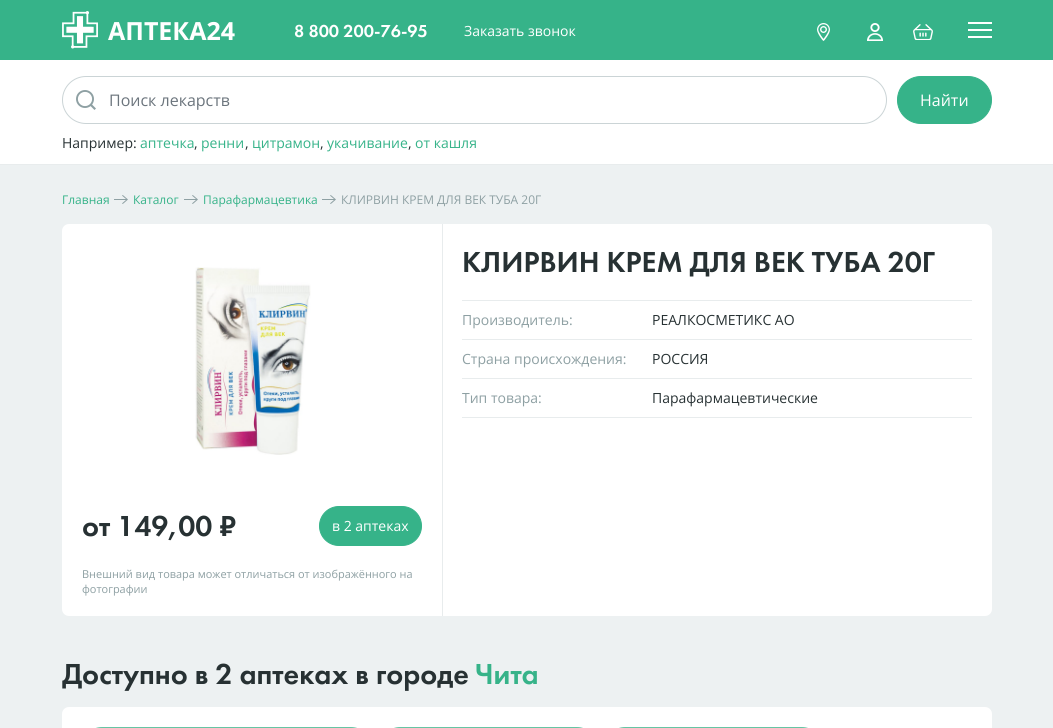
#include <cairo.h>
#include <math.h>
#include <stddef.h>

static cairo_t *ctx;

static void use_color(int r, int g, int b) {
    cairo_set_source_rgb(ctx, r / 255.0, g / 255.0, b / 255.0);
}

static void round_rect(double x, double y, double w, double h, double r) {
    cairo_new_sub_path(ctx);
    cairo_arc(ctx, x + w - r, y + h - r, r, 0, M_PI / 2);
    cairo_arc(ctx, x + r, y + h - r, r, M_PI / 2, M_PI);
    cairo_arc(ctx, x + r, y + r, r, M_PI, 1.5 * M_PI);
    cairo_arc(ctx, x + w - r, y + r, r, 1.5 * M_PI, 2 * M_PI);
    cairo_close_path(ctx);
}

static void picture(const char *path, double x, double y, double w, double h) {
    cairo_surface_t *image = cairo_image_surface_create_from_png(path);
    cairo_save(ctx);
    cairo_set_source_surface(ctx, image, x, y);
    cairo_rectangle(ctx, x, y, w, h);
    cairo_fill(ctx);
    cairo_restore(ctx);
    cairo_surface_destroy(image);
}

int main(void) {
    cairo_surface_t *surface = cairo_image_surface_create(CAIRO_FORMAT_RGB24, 1053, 728);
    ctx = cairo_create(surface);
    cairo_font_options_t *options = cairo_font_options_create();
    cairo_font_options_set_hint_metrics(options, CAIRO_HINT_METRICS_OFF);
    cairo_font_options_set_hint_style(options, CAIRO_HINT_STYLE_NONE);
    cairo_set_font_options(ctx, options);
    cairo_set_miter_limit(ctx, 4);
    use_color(255, 255, 255);
    cairo_paint(ctx);
    use_color(54, 179, 137);
    cairo_rectangle(ctx, 0, 0, 1053, 60);
    cairo_fill(ctx);
    picture("img1.png", 62, 11, 36, 38);
    cairo_select_font_face(ctx, "Open Sans", CAIRO_FONT_SLANT_NORMAL, CAIRO_FONT_WEIGHT_BOLD);
    cairo_set_font_size(ctx, 25);
    use_color(255, 255, 255);
    cairo_move_to(ctx, 108, 40);
    cairo_show_text(ctx, "АПТЕКА24");
    cairo_select_font_face(ctx, "Futura PT Medium", CAIRO_FONT_SLANT_NORMAL, CAIRO_FONT_WEIGHT_NORMAL);
    cairo_set_font_size(ctx, 18);
    cairo_move_to(ctx, 294, 37);
    cairo_show_text(ctx, "8 800 200-76-95");
    cairo_select_font_face(ctx, "Open Sans", CAIRO_FONT_SLANT_NORMAL, CAIRO_FONT_WEIGHT_NORMAL);
    cairo_set_font_size(ctx, 14);
    cairo_move_to(ctx, 464, 36);
    cairo_show_text(ctx, "Заказать звонок");
    picture("img2.png", 817, 23, 13, 18);
    picture("img3.png", 867, 23, 16, 18);
    picture("img4.png", 913, 24, 20, 16);
    cairo_rectangle(ctx, 968, 22, 24, 2);
    cairo_fill(ctx);
    cairo_rectangle(ctx, 968, 29, 24, 2);
    cairo_fill(ctx);
    cairo_rectangle(ctx, 968, 36, 24, 2);
    cairo_fill(ctx);
    use_color(232, 236, 237);
    cairo_rectangle(ctx, 0, 164, 1053, 1);
    cairo_fill(ctx);
    round_rect(62.5, 76.5, 824, 47, 23.5);
    use_color(203, 212, 214);
    cairo_set_line_width(ctx, 1);
    cairo_stroke(ctx);
    picture("img5.png", 76, 90, 20, 20);
    cairo_set_font_size(ctx, 16);
    use_color(108, 117, 125);
    cairo_move_to(ctx, 109, 106);
    cairo_show_text(ctx, "Поиск лекарств");
    use_color(54, 179, 137);
    round_rect(897.5, 76.5, 94, 47, 23.5);
    cairo_fill_preserve(ctx);
    cairo_stroke(ctx);
    use_color(255, 255, 255);
    cairo_move_to(ctx, 920, 106);
    cairo_show_text(ctx, "Найти");
    cairo_set_font_size(ctx, 14);
    use_color(39, 49, 51);
    cairo_move_to(ctx, 62, 148);
    cairo_show_text(ctx, "Например:");
    use_color(54, 179, 137);
    cairo_move_to(ctx, 140, 148);
    cairo_show_text(ctx, "аптечка");
    use_color(39, 49, 51);
    cairo_move_to(ctx, 194, 148);
    cairo_show_text(ctx, ",");
    use_color(54, 179, 137);
    cairo_move_to(ctx, 201, 148);
    cairo_show_text(ctx, "ренни");
    use_color(39, 49, 51);
    cairo_move_to(ctx, 245, 148);
    cairo_show_text(ctx, ",");
    use_color(54, 179, 137);
    cairo_move_to(ctx, 252, 148);
    cairo_show_text(ctx, "цитрамон");
    use_color(39, 49, 51);
    cairo_move_to(ctx, 320, 148);
    cairo_show_text(ctx, ",");
    use_color(54, 179, 137);
    cairo_move_to(ctx, 327, 148);
    cairo_show_text(ctx, "укачивание");
    use_color(39, 49, 51);
    cairo_move_to(ctx, 408, 148);
    cairo_show_text(ctx, ",");
    use_color(54, 179, 137);
    cairo_move_to(ctx, 415, 148);
    cairo_show_text(ctx, "от кашля");
    use_color(237, 241, 242);
    cairo_rectangle(ctx, 0, 165, 1053, 563);
    cairo_fill(ctx);
    cairo_set_font_size(ctx, 12);
    use_color(54, 179, 137);
    cairo_move_to(ctx, 62, 204);
    cairo_show_text(ctx, "Главная");
    picture("img6.png", 114, 195, 14, 9);
    cairo_move_to(ctx, 133, 204);
    cairo_show_text(ctx, "Каталог");
    picture("img6.png", 184, 195, 14, 9);
    cairo_move_to(ctx, 203, 204);
    cairo_show_text(ctx, "Парафармацевтика");
    picture("img6.png", 322, 195, 14, 9);
    use_color(142, 160, 163);
    cairo_move_to(ctx, 341, 204);
    cairo_show_text(ctx, "КЛИРВИН КРЕМ ДЛЯ ВЕК ТУБА 20Г");
    use_color(255, 255, 255);
    round_rect(62, 224, 930, 392, 7);
    cairo_fill(ctx);
    use_color(232, 236, 237);
    cairo_rectangle(ctx, 442, 224, 1, 392);
    cairo_fill(ctx);
    cairo_select_font_face(ctx, "Futura PT Medium", CAIRO_FONT_SLANT_NORMAL, CAIRO_FONT_WEIGHT_NORMAL);
    cairo_set_font_size(ctx, 30);
    use_color(39, 49, 51);
    cairo_move_to(ctx, 462, 272);
    cairo_show_text(ctx, "КЛИРВИН КРЕМ ДЛЯ ВЕК ТУБА 20Г");
    use_color(232, 236, 237);
    cairo_rectangle(ctx, 462, 300, 510, 1);
    cairo_fill(ctx);
    cairo_rectangle(ctx, 462, 339, 510, 1);
    cairo_fill(ctx);
    cairo_select_font_face(ctx, "Open Sans", CAIRO_FONT_SLANT_NORMAL, CAIRO_FONT_WEIGHT_NORMAL);
    cairo_set_font_size(ctx, 14);
    use_color(142, 160, 163);
    cairo_move_to(ctx, 462, 325);
    cairo_show_text(ctx, "Производитель:");
    use_color(39, 49, 51);
    cairo_move_to(ctx, 652, 325);
    cairo_show_text(ctx, "РЕАЛКОСМЕТИКС АО");
    use_color(232, 236, 237);
    cairo_rectangle(ctx, 462, 378, 510, 1);
    cairo_fill(ctx);
    use_color(142, 160, 163);
    cairo_move_to(ctx, 462, 364);
    cairo_show_text(ctx, "Страна происхождения:");
    use_color(39, 49, 51);
    cairo_move_to(ctx, 652, 364);
    cairo_show_text(ctx, "РОССИЯ");
    use_color(232, 236, 237);
    cairo_rectangle(ctx, 462, 417, 510, 1);
    cairo_fill(ctx);
    use_color(142, 160, 163);
    cairo_move_to(ctx, 462, 403);
    cairo_show_text(ctx, "Тип товара:");
    use_color(39, 49, 51);
    cairo_move_to(ctx, 652, 403);
    cairo_show_text(ctx, "Парафармацевтические");
    picture("img7.png", 195, 267, 116, 188);
    cairo_select_font_face(ctx, "Futura PT Medium", CAIRO_FONT_SLANT_NORMAL, CAIRO_FONT_WEIGHT_NORMAL);
    cairo_set_font_size(ctx, 30);
    cairo_move_to(ctx, 82, 536);
    cairo_show_text(ctx, "от 149,00 ₽");
    use_color(54, 179, 137);
    round_rect(319.5, 506.5, 102, 39, 19.5);
    cairo_fill_preserve(ctx);
    cairo_stroke(ctx);
    cairo_select_font_face(ctx, "Open Sans", CAIRO_FONT_SLANT_NORMAL, CAIRO_FONT_WEIGHT_NORMAL);
    cairo_set_font_size(ctx, 14);
    use_color(255, 255, 255);
    cairo_move_to(ctx, 332, 531);
    cairo_show_text(ctx, "в 2 аптеках");
    cairo_set_font_size(ctx, 10.95);
    use_color(142, 160, 163);
    cairo_move_to(ctx, 82, 578);
    cairo_show_text(ctx, "Внешний вид товара может отличаться от изображённого на");
    cairo_move_to(ctx, 82, 593);
    cairo_show_text(ctx, "фотографии");
    cairo_select_font_face(ctx, "Futura PT Medium", CAIRO_FONT_SLANT_NORMAL, CAIRO_FONT_WEIGHT_NORMAL);
    cairo_set_font_size(ctx, 30);
    use_color(39, 49, 51);
    cairo_move_to(ctx, 62, 684);
    cairo_show_text(ctx, "Доступно в 2 аптеках в городе");
    use_color(54, 179, 137);
    cairo_move_to(ctx, 475, 684);
    cairo_show_text(ctx, "Чита");
    use_color(255, 255, 255);
    round_rect(62, 707, 930, 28, 7);
    cairo_fill(ctx);
    round_rect(82.5, 727.5, 288, 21, 19.5);
    use_color(102, 197, 164);
    cairo_stroke(ctx);
    round_rect(381.5, 727.5, 214, 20, 18.5);
    cairo_stroke(ctx);
    round_rect(606.5, 727.5, 214, 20, 18.5);
    cairo_stroke(ctx);
    cairo_surface_write_to_png(surface, "result.png");
    cairo_font_options_destroy(options);
    cairo_destroy(ctx);
    cairo_surface_destroy(surface);
    return 0;
}
